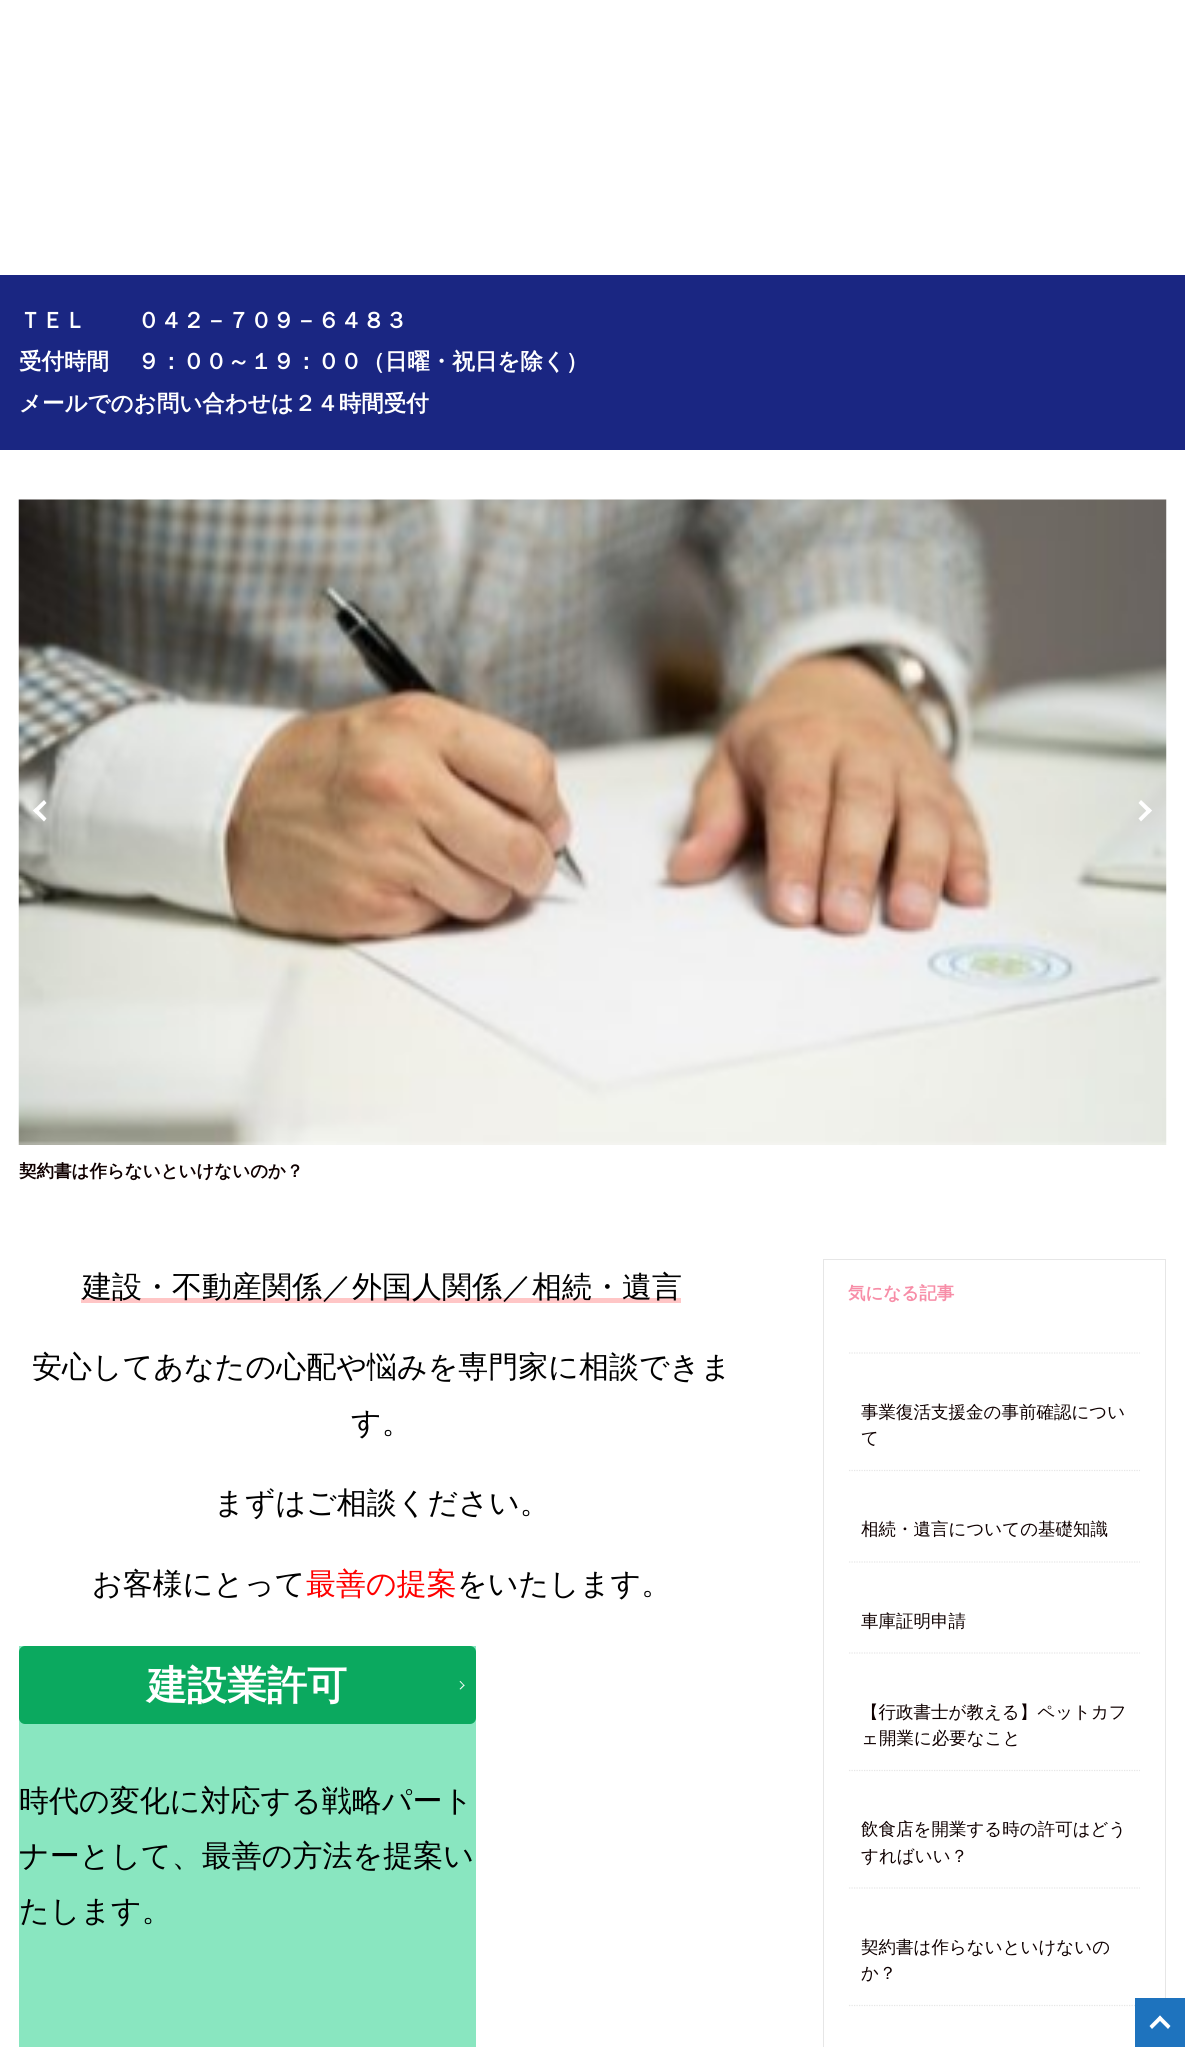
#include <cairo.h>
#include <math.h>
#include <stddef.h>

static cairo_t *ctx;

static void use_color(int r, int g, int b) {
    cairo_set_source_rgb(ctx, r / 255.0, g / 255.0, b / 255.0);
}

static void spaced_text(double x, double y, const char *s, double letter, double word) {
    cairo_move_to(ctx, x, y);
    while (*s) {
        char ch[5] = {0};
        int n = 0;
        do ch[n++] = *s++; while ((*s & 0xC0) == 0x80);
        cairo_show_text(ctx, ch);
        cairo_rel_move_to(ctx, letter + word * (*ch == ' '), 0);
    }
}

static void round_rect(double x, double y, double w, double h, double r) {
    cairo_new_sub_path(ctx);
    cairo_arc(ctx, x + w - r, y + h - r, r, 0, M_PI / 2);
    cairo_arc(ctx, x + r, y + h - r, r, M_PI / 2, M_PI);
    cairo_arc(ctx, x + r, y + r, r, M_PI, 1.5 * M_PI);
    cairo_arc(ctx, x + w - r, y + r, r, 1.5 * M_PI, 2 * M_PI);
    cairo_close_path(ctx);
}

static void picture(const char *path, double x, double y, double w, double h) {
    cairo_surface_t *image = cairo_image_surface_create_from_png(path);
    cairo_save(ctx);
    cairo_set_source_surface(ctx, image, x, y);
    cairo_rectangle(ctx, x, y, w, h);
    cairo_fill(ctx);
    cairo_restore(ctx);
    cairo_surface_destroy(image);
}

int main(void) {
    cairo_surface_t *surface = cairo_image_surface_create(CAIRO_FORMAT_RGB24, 1185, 2047);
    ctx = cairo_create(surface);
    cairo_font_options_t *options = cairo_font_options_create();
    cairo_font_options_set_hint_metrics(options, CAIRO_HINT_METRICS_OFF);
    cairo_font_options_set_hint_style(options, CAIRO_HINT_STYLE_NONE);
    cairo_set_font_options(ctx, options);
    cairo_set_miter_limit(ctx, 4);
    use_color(255, 255, 255);
    cairo_paint(ctx);
    use_color(26, 38, 130);
    cairo_rectangle(ctx, 0, 275, 1185, 175);
    cairo_fill(ctx);
    cairo_select_font_face(ctx, "WenQuanYi Zen Hei", CAIRO_FONT_SLANT_NORMAL, CAIRO_FONT_WEIGHT_BOLD);
    cairo_set_font_size(ctx, 22.5);
    use_color(255, 255, 255);
    spaced_text(19, 328, "ＴＥＬ 　　０４２－７０９－６４８３", 0, -1);
    spaced_text(19, 369, "受付時間 　９：００～１９：００（日曜・祝日を除く）", 0, -1);
    cairo_move_to(ctx, 19, 411);
    cairo_show_text(ctx, "メールでのお問い合わせは２４時間受付");
    picture("img1.png", 18, 499, 1149, 646);
    cairo_new_path(ctx);
    cairo_move_to(ctx, 44, 821.5);
    cairo_line_to(ctx, 33, 810.5);
    cairo_line_to(ctx, 36, 808);
    cairo_line_to(ctx, 46.5, 818.5);
    cairo_close_path(ctx);
    cairo_fill(ctx);
    cairo_new_path(ctx);
    cairo_move_to(ctx, 36, 813.5);
    cairo_line_to(ctx, 33, 810.5);
    cairo_line_to(ctx, 44, 800);
    cairo_line_to(ctx, 46.5, 803);
    cairo_close_path(ctx);
    cairo_fill(ctx);
    cairo_new_path(ctx);
    cairo_move_to(ctx, 1141, 800);
    cairo_line_to(ctx, 1152, 810.5);
    cairo_line_to(ctx, 1149, 813.5);
    cairo_line_to(ctx, 1138.5, 803);
    cairo_close_path(ctx);
    cairo_fill(ctx);
    cairo_new_path(ctx);
    cairo_move_to(ctx, 1149, 808);
    cairo_line_to(ctx, 1152, 810.5);
    cairo_line_to(ctx, 1141, 821.5);
    cairo_line_to(ctx, 1138.5, 818.5);
    cairo_close_path(ctx);
    cairo_fill(ctx);
    cairo_set_font_size(ctx, 17.5);
    use_color(15, 0, 0);
    cairo_move_to(ctx, 19, 1177);
    cairo_show_text(ctx, "契約書は作らないといけないのか？");
    use_color(255, 198, 198);
    cairo_rectangle(ctx, 81, 1298, 600, 5);
    cairo_fill(ctx);
    cairo_select_font_face(ctx, "WenQuanYi Zen Hei Medium", CAIRO_FONT_SLANT_NORMAL, CAIRO_FONT_WEIGHT_NORMAL);
    cairo_set_font_size(ctx, 30);
    use_color(0, 0, 0);
    cairo_move_to(ctx, 82, 1297);
    cairo_show_text(ctx, "建設・不動産関係／外国人関係／相続・遺言");
    cairo_move_to(ctx, 32, 1377);
    cairo_show_text(ctx, "安心してあなたの心配や悩みを専門家に相談できま");
    cairo_move_to(ctx, 351, 1433);
    cairo_show_text(ctx, "す。");
    cairo_move_to(ctx, 214, 1513);
    cairo_show_text(ctx, "まずはご相談ください。");
    cairo_move_to(ctx, 92, 1594);
    cairo_show_text(ctx, "お客様にとって");
    use_color(255, 0, 0);
    cairo_move_to(ctx, 306, 1594);
    cairo_show_text(ctx, "最善の提案");
    use_color(0, 0, 0);
    cairo_move_to(ctx, 457, 1594);
    cairo_show_text(ctx, "をいたします。");
    use_color(137, 230, 192);
    cairo_rectangle(ctx, 19, 1646, 457, 401);
    cairo_fill(ctx);
    use_color(11, 169, 95);
    round_rect(19, 1646, 457, 78, 6);
    cairo_fill(ctx);
    cairo_select_font_face(ctx, "WenQuanYi Zen Hei", CAIRO_FONT_SLANT_NORMAL, CAIRO_FONT_WEIGHT_BOLD);
    cairo_set_font_size(ctx, 40);
    use_color(255, 255, 255);
    cairo_move_to(ctx, 147, 1699);
    cairo_show_text(ctx, "建設業許可");
    cairo_new_path(ctx);
    cairo_move_to(ctx, 460.5, 1681);
    cairo_line_to(ctx, 464.5, 1685.5);
    cairo_line_to(ctx, 464, 1686);
    cairo_line_to(ctx, 459.5, 1681.5);
    cairo_close_path(ctx);
    cairo_fill(ctx);
    cairo_new_path(ctx);
    cairo_move_to(ctx, 464, 1684.5);
    cairo_line_to(ctx, 464.5, 1685.5);
    cairo_line_to(ctx, 460.5, 1689.5);
    cairo_line_to(ctx, 459.5, 1689);
    cairo_close_path(ctx);
    cairo_fill(ctx);
    cairo_select_font_face(ctx, "WenQuanYi Zen Hei Medium", CAIRO_FONT_SLANT_NORMAL, CAIRO_FONT_WEIGHT_NORMAL);
    cairo_set_font_size(ctx, 30);
    use_color(0, 0, 0);
    cairo_move_to(ctx, 19, 1811);
    cairo_show_text(ctx, "時代の変化に対応する戦略パート");
    cairo_move_to(ctx, 19, 1866);
    cairo_show_text(ctx, "ナーとして、最善の方法を提案い");
    cairo_move_to(ctx, 19, 1921);
    cairo_show_text(ctx, "たします。");
    cairo_rectangle(ctx, 823.5, 1259.5, 342, 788);
    use_color(230, 230, 230);
    cairo_set_line_width(ctx, 1);
    cairo_stroke(ctx);
    cairo_select_font_face(ctx, "WenQuanYi Zen Hei", CAIRO_FONT_SLANT_NORMAL, CAIRO_FONT_WEIGHT_BOLD);
    cairo_set_font_size(ctx, 17.5);
    use_color(247, 141, 167);
    cairo_move_to(ctx, 848, 1299);
    cairo_show_text(ctx, "気になる記事");
    cairo_new_path(ctx);
    cairo_move_to(ctx, 849, 1353);
    cairo_line_to(ctx, 1140, 1353);
    use_color(230, 230, 230);
    cairo_set_line_width(ctx, 1.2);
    cairo_set_dash(ctx, (double[]){1.25, 1.25}, 2, 0);
    cairo_stroke(ctx);
    cairo_new_path(ctx);
    cairo_move_to(ctx, 849, 1470.5);
    cairo_line_to(ctx, 1140, 1470.5);
    cairo_stroke(ctx);
    cairo_select_font_face(ctx, "WenQuanYi Zen Hei Medium", CAIRO_FONT_SLANT_NORMAL, CAIRO_FONT_WEIGHT_NORMAL);
    use_color(15, 0, 0);
    cairo_move_to(ctx, 861, 1418);
    cairo_show_text(ctx, "事業復活支援金の事前確認につい");
    cairo_move_to(ctx, 861, 1444);
    cairo_show_text(ctx, "て");
    cairo_new_path(ctx);
    cairo_move_to(ctx, 849, 1562);
    cairo_line_to(ctx, 1140, 1562);
    use_color(230, 230, 230);
    cairo_stroke(ctx);
    use_color(15, 0, 0);
    cairo_move_to(ctx, 861, 1535);
    cairo_show_text(ctx, "相続・遺言についての基礎知識");
    cairo_new_path(ctx);
    cairo_move_to(ctx, 849, 1653);
    cairo_line_to(ctx, 1140, 1653);
    use_color(230, 230, 230);
    cairo_stroke(ctx);
    use_color(15, 0, 0);
    cairo_move_to(ctx, 861, 1627);
    cairo_show_text(ctx, "車庫証明申請");
    cairo_new_path(ctx);
    cairo_move_to(ctx, 849, 1770.5);
    cairo_line_to(ctx, 1140, 1770.5);
    use_color(230, 230, 230);
    cairo_stroke(ctx);
    use_color(15, 0, 0);
    cairo_move_to(ctx, 861, 1718);
    cairo_show_text(ctx, "【行政書士が教える】ペットカフ");
    cairo_move_to(ctx, 861, 1744);
    cairo_show_text(ctx, "ェ開業に必要なこと");
    cairo_new_path(ctx);
    cairo_move_to(ctx, 849, 1888);
    cairo_line_to(ctx, 1140, 1888);
    use_color(230, 230, 230);
    cairo_stroke(ctx);
    use_color(15, 0, 0);
    cairo_move_to(ctx, 861, 1835);
    cairo_show_text(ctx, "飲食店を開業する時の許可はどう");
    cairo_move_to(ctx, 861, 1862);
    cairo_show_text(ctx, "すればいい？");
    cairo_new_path(ctx);
    cairo_move_to(ctx, 849, 2005.5);
    cairo_line_to(ctx, 1140, 2005.5);
    use_color(230, 230, 230);
    cairo_stroke(ctx);
    use_color(15, 0, 0);
    cairo_move_to(ctx, 861, 1953);
    cairo_show_text(ctx, "契約書は作らないといけないの");
    cairo_move_to(ctx, 861, 1979);
    cairo_show_text(ctx, "か？");
    use_color(30, 115, 190);
    cairo_rectangle(ctx, 1135, 1998, 50, 49);
    cairo_fill(ctx);
    use_color(255, 255, 255);
    cairo_new_path(ctx);
    cairo_move_to(ctx, 1149.5, 2026);
    cairo_line_to(ctx, 1160, 2015.5);
    cairo_line_to(ctx, 1162.5, 2018.5);
    cairo_line_to(ctx, 1152, 2029);
    cairo_close_path(ctx);
    cairo_fill(ctx);
    cairo_new_path(ctx);
    cairo_move_to(ctx, 1157.5, 2018.5);
    cairo_line_to(ctx, 1160, 2015.5);
    cairo_line_to(ctx, 1170.5, 2026);
    cairo_line_to(ctx, 1168, 2029);
    cairo_close_path(ctx);
    cairo_fill(ctx);
    cairo_surface_write_to_png(surface, "result.png");
    cairo_font_options_destroy(options);
    cairo_destroy(ctx);
    cairo_surface_destroy(surface);
    return 0;
}
